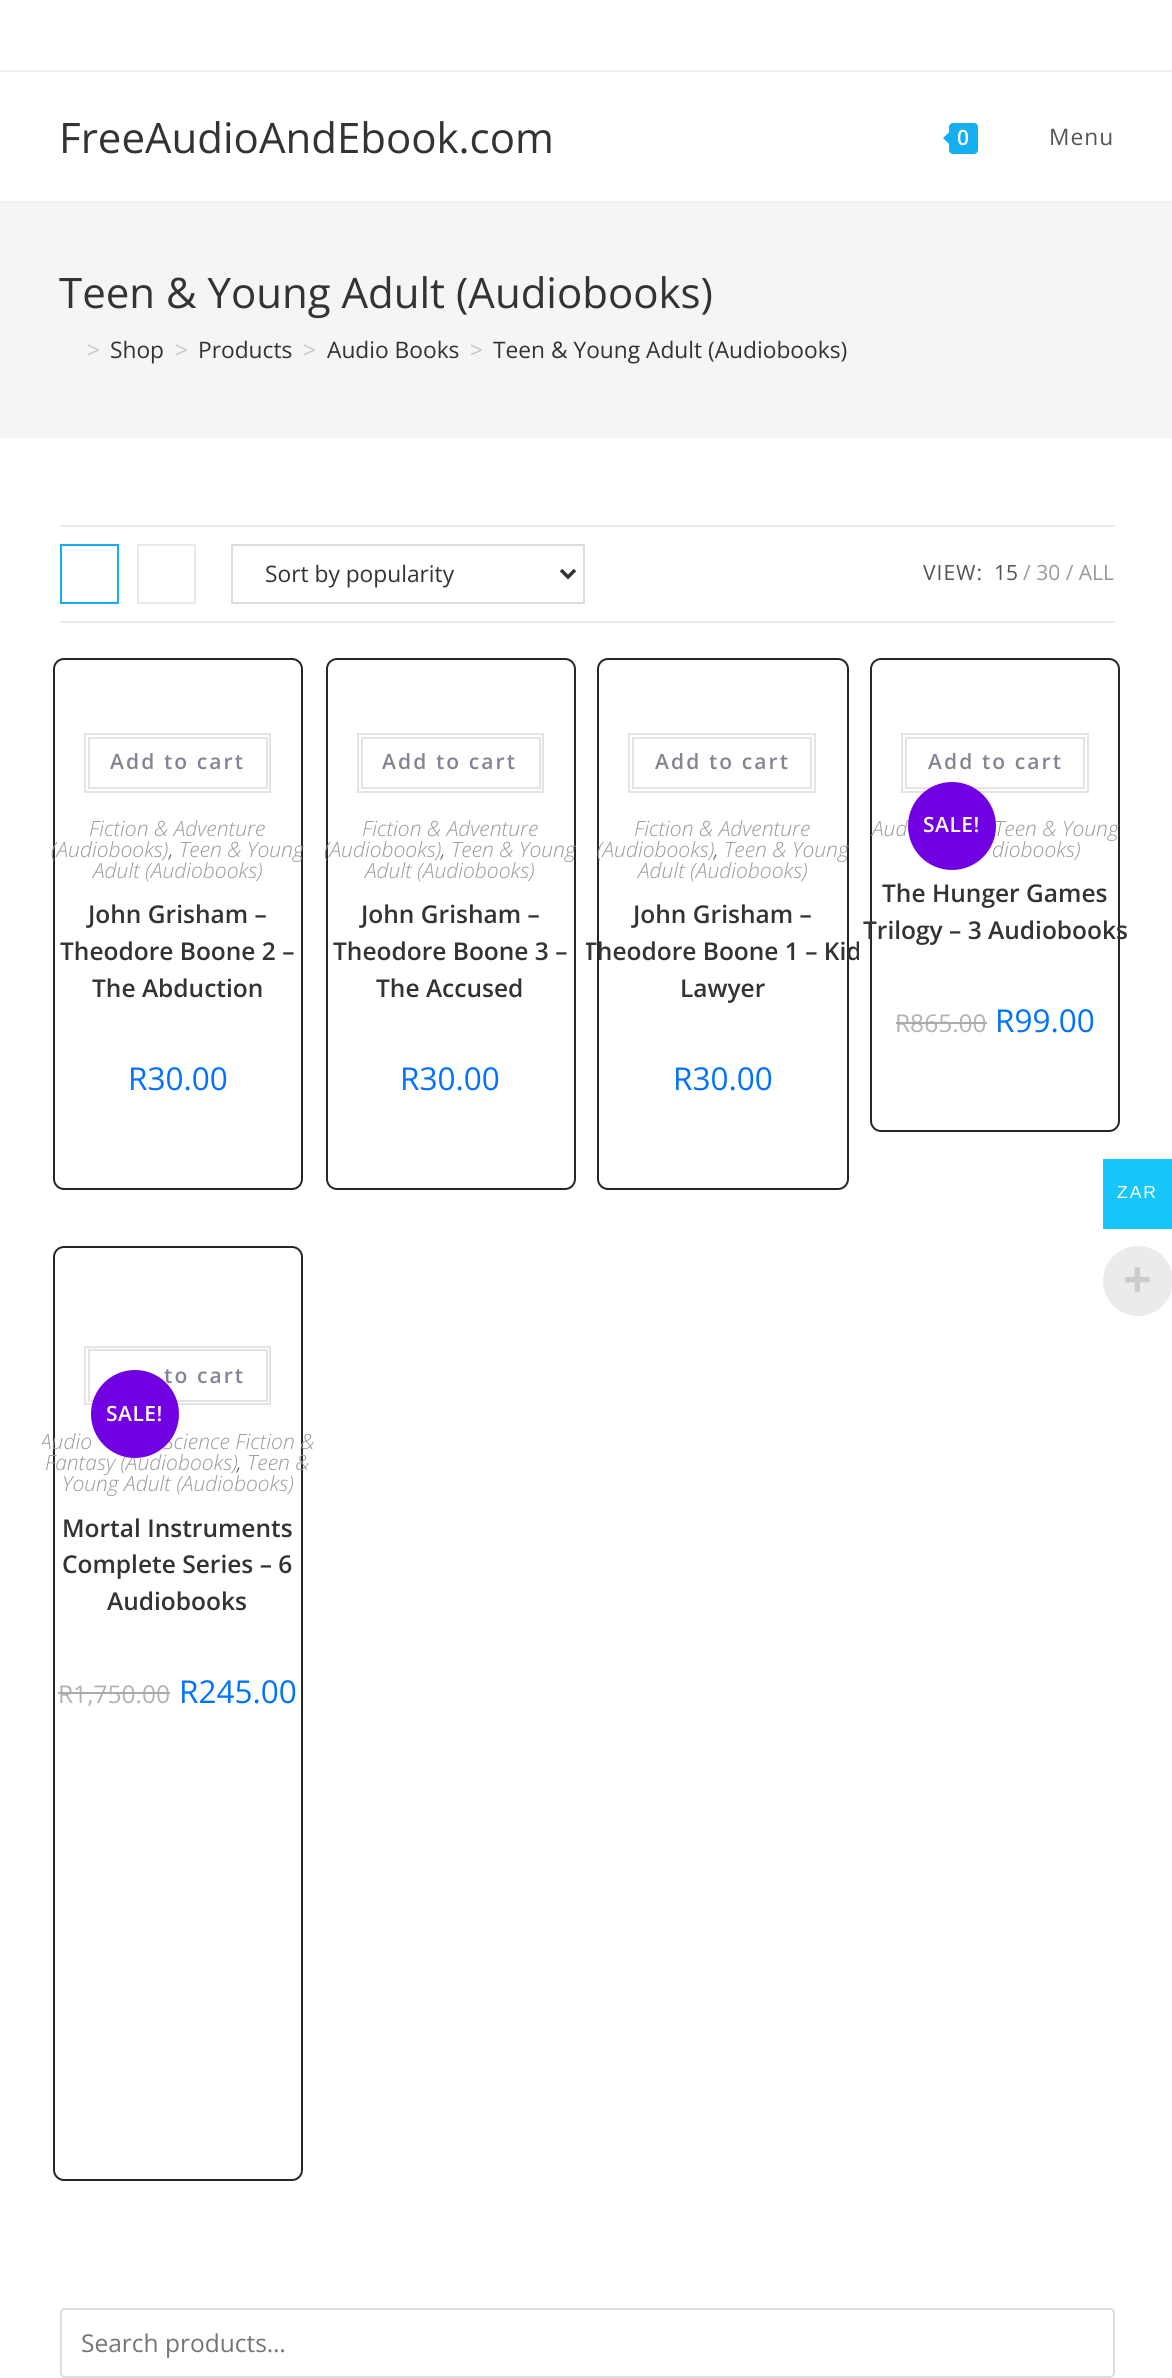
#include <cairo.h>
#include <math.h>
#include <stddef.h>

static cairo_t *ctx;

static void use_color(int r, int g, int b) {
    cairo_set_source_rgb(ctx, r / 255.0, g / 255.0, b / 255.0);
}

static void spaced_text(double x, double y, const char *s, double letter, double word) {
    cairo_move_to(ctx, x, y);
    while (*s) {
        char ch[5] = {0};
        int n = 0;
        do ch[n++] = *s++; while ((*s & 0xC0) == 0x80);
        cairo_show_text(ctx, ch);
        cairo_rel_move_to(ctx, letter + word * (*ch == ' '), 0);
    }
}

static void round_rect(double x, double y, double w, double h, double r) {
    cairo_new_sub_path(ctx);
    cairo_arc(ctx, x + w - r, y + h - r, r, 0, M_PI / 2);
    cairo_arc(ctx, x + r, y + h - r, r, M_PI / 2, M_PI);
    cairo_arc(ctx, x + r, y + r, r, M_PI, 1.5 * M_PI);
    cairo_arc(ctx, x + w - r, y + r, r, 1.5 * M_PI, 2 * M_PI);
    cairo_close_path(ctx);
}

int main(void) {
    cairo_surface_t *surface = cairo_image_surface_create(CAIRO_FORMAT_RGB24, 1172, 2378);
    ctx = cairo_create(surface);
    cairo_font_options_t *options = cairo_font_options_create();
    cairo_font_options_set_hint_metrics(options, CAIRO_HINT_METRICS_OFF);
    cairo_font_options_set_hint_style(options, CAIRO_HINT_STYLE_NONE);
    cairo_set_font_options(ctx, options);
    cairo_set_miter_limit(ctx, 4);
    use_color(255, 255, 255);
    cairo_paint(ctx);
    use_color(241, 241, 241);
    cairo_rectangle(ctx, 0, 70, 1172, 2);
    cairo_fill(ctx);
    cairo_rectangle(ctx, 0, 201, 1172, 2);
    cairo_fill(ctx);
    cairo_select_font_face(ctx, "Open Sans", CAIRO_FONT_SLANT_NORMAL, CAIRO_FONT_WEIGHT_NORMAL);
    cairo_set_font_size(ctx, 42);
    use_color(51, 51, 51);
    cairo_move_to(ctx, 59, 153);
    cairo_show_text(ctx, "FreeAudioAndEbook.com");
    use_color(19, 175, 240);
    round_rect(949, 123, 29, 31, 4);
    cairo_fill(ctx);
    cairo_new_path(ctx);
    cairo_move_to(ctx, 952, 129.5);
    cairo_line_to(ctx, 952, 147);
    cairo_line_to(ctx, 943, 138);
    cairo_close_path(ctx);
    cairo_fill(ctx);
    cairo_select_font_face(ctx, "Open Sans SemiBold", CAIRO_FONT_SLANT_NORMAL, CAIRO_FONT_WEIGHT_NORMAL);
    cairo_set_font_size(ctx, 21);
    use_color(255, 255, 255);
    spaced_text(957, 145, "0", 1, 0);
    cairo_select_font_face(ctx, "Open Sans", CAIRO_FONT_SLANT_NORMAL, CAIRO_FONT_WEIGHT_NORMAL);
    cairo_set_font_size(ctx, 22.75);
    use_color(85, 85, 85);
    spaced_text(1049, 145, "Menu", 1, 0);
    use_color(245, 245, 245);
    cairo_rectangle(ctx, 0, 203, 1172, 235);
    cairo_fill(ctx);
    cairo_set_font_size(ctx, 42);
    use_color(51, 51, 51);
    cairo_move_to(ctx, 59, 308);
    cairo_show_text(ctx, "Teen & Young Adult (Audiobooks)");
    cairo_set_font_size(ctx, 22.75);
    use_color(198, 198, 198);
    cairo_move_to(ctx, 87, 358);
    cairo_show_text(ctx, ">");
    use_color(51, 51, 51);
    cairo_move_to(ctx, 110, 358);
    cairo_show_text(ctx, "Shop");
    use_color(198, 198, 198);
    cairo_move_to(ctx, 175, 358);
    cairo_show_text(ctx, ">");
    use_color(51, 51, 51);
    cairo_move_to(ctx, 198, 358);
    cairo_show_text(ctx, "Products");
    use_color(198, 198, 198);
    cairo_move_to(ctx, 303, 358);
    cairo_show_text(ctx, ">");
    use_color(51, 51, 51);
    cairo_move_to(ctx, 327, 358);
    cairo_show_text(ctx, "Audio Books");
    use_color(198, 198, 198);
    cairo_move_to(ctx, 470, 358);
    cairo_show_text(ctx, ">");
    use_color(51, 51, 51);
    cairo_move_to(ctx, 493, 358);
    cairo_show_text(ctx, "Teen & Young Adult (Audiobooks)");
    use_color(234, 234, 234);
    cairo_rectangle(ctx, 60, 525, 1055, 2);
    cairo_fill(ctx);
    cairo_rectangle(ctx, 60, 621, 1055, 2);
    cairo_fill(ctx);
    cairo_rectangle(ctx, 61, 545, 57, 58);
    use_color(19, 175, 240);
    cairo_stroke(ctx);
    cairo_rectangle(ctx, 138, 545, 57, 58);
    use_color(234, 234, 234);
    cairo_stroke(ctx);
    cairo_rectangle(ctx, 232, 545, 352, 58);
    use_color(221, 221, 221);
    cairo_stroke(ctx);
    cairo_new_path(ctx);
    cairo_move_to(ctx, 561, 570);
    cairo_line_to(ctx, 568, 577);
    cairo_line_to(ctx, 575, 570);
    use_color(51, 51, 51);
    cairo_set_line_width(ctx, 3.5);
    cairo_stroke(ctx);
    cairo_move_to(ctx, 265, 582);
    cairo_show_text(ctx, "Sort by popularity");
    cairo_set_font_size(ctx, 21);
    use_color(85, 85, 85);
    spaced_text(923, 580, "VIEW:", 1, 0);
    cairo_move_to(ctx, 994, 580);
    cairo_show_text(ctx, "15");
    use_color(153, 153, 153);
    cairo_move_to(ctx, 1023, 580);
    cairo_show_text(ctx, "/ 30 / ALL");
    round_rect(54, 659, 248, 530, 10);
    use_color(38, 38, 38);
    cairo_set_line_width(ctx, 2);
    cairo_stroke(ctx);
    cairo_rectangle(ctx, 85, 734, 185, 58);
    use_color(228, 228, 228);
    cairo_stroke(ctx);
    cairo_rectangle(ctx, 89, 738, 178, 50);
    cairo_stroke(ctx);
    cairo_select_font_face(ctx, "Open Sans SemiBold", CAIRO_FONT_SLANT_NORMAL, CAIRO_FONT_WEIGHT_NORMAL);
    use_color(132, 132, 148);
    spaced_text(110, 769, "Add to cart", 2.1, 0);
    cairo_select_font_face(ctx, "Open Sans Light", CAIRO_FONT_SLANT_ITALIC, CAIRO_FONT_WEIGHT_NORMAL);
    use_color(153, 153, 153);
    cairo_move_to(ctx, 89, 836);
    cairo_show_text(ctx, "Fiction & Adventure");
    cairo_move_to(ctx, 51, 857);
    cairo_show_text(ctx, "(Audiobooks)");
    use_color(74, 74, 74);
    cairo_move_to(ctx, 169, 857);
    cairo_show_text(ctx, ",");
    use_color(153, 153, 153);
    cairo_move_to(ctx, 179, 857);
    cairo_show_text(ctx, "Teen & Young");
    cairo_move_to(ctx, 93, 878);
    cairo_show_text(ctx, "Adult (Audiobooks)");
    cairo_select_font_face(ctx, "Open Sans SemiBold", CAIRO_FONT_SLANT_NORMAL, CAIRO_FONT_WEIGHT_NORMAL);
    cairo_set_font_size(ctx, 24.5);
    use_color(51, 51, 51);
    cairo_move_to(ctx, 88, 923);
    cairo_show_text(ctx, "John Grisham –");
    cairo_move_to(ctx, 60, 960);
    cairo_show_text(ctx, "Theodore Boone 2 –");
    cairo_move_to(ctx, 92, 997);
    cairo_show_text(ctx, "The Abduction");
    cairo_select_font_face(ctx, "Open Sans", CAIRO_FONT_SLANT_NORMAL, CAIRO_FONT_WEIGHT_NORMAL);
    cairo_set_font_size(ctx, 31.5);
    use_color(0, 114, 255);
    cairo_move_to(ctx, 128, 1090);
    cairo_show_text(ctx, "R30.00");
    round_rect(327, 659, 248, 530, 10);
    use_color(38, 38, 38);
    cairo_stroke(ctx);
    cairo_rectangle(ctx, 358, 734, 185, 58);
    use_color(228, 228, 228);
    cairo_stroke(ctx);
    cairo_rectangle(ctx, 362, 738, 178, 50);
    cairo_stroke(ctx);
    cairo_select_font_face(ctx, "Open Sans SemiBold", CAIRO_FONT_SLANT_NORMAL, CAIRO_FONT_WEIGHT_NORMAL);
    cairo_set_font_size(ctx, 21);
    use_color(132, 132, 148);
    spaced_text(382, 769, "Add to cart", 2.1, 0);
    cairo_select_font_face(ctx, "Open Sans Light", CAIRO_FONT_SLANT_ITALIC, CAIRO_FONT_WEIGHT_NORMAL);
    use_color(153, 153, 153);
    cairo_move_to(ctx, 362, 836);
    cairo_show_text(ctx, "Fiction & Adventure");
    cairo_move_to(ctx, 324, 857);
    cairo_show_text(ctx, "(Audiobooks)");
    use_color(74, 74, 74);
    cairo_move_to(ctx, 441, 857);
    cairo_show_text(ctx, ",");
    use_color(153, 153, 153);
    cairo_move_to(ctx, 451, 857);
    cairo_show_text(ctx, "Teen & Young");
    cairo_move_to(ctx, 365, 878);
    cairo_show_text(ctx, "Adult (Audiobooks)");
    cairo_select_font_face(ctx, "Open Sans SemiBold", CAIRO_FONT_SLANT_NORMAL, CAIRO_FONT_WEIGHT_NORMAL);
    cairo_set_font_size(ctx, 24.5);
    use_color(51, 51, 51);
    cairo_move_to(ctx, 361, 923);
    cairo_show_text(ctx, "John Grisham –");
    cairo_move_to(ctx, 333, 960);
    cairo_show_text(ctx, "Theodore Boone 3 –");
    cairo_move_to(ctx, 376, 997);
    cairo_show_text(ctx, "The Accused");
    cairo_select_font_face(ctx, "Open Sans", CAIRO_FONT_SLANT_NORMAL, CAIRO_FONT_WEIGHT_NORMAL);
    cairo_set_font_size(ctx, 31.5);
    use_color(0, 114, 255);
    cairo_move_to(ctx, 400, 1090);
    cairo_show_text(ctx, "R30.00");
    round_rect(598, 659, 250, 530, 10);
    use_color(38, 38, 38);
    cairo_stroke(ctx);
    cairo_rectangle(ctx, 629, 734, 186, 58);
    use_color(228, 228, 228);
    cairo_stroke(ctx);
    cairo_rectangle(ctx, 633, 738, 178, 50);
    cairo_stroke(ctx);
    cairo_select_font_face(ctx, "Open Sans SemiBold", CAIRO_FONT_SLANT_NORMAL, CAIRO_FONT_WEIGHT_NORMAL);
    cairo_set_font_size(ctx, 21);
    use_color(132, 132, 148);
    spaced_text(655, 769, "Add to cart", 2.1, 0);
    cairo_select_font_face(ctx, "Open Sans Light", CAIRO_FONT_SLANT_ITALIC, CAIRO_FONT_WEIGHT_NORMAL);
    use_color(153, 153, 153);
    cairo_move_to(ctx, 634, 836);
    cairo_show_text(ctx, "Fiction & Adventure");
    cairo_move_to(ctx, 597, 857);
    cairo_show_text(ctx, "(Audiobooks)");
    use_color(74, 74, 74);
    cairo_move_to(ctx, 714, 857);
    cairo_show_text(ctx, ",");
    use_color(153, 153, 153);
    cairo_move_to(ctx, 724, 857);
    cairo_show_text(ctx, "Teen & Young");
    cairo_move_to(ctx, 638, 878);
    cairo_show_text(ctx, "Adult (Audiobooks)");
    cairo_select_font_face(ctx, "Open Sans SemiBold", CAIRO_FONT_SLANT_NORMAL, CAIRO_FONT_WEIGHT_NORMAL);
    cairo_set_font_size(ctx, 24.5);
    use_color(51, 51, 51);
    cairo_move_to(ctx, 633, 923);
    cairo_show_text(ctx, "John Grisham –");
    cairo_save(ctx);
    cairo_rectangle(ctx, 586, 658, 273, 567);
    cairo_clip(ctx);
    cairo_move_to(ctx, 583, 960);
    cairo_show_text(ctx, "Theodore Boone 1 – Kid");
    cairo_restore(ctx);
    cairo_move_to(ctx, 680, 997);
    cairo_show_text(ctx, "Lawyer");
    cairo_select_font_face(ctx, "Open Sans", CAIRO_FONT_SLANT_NORMAL, CAIRO_FONT_WEIGHT_NORMAL);
    cairo_set_font_size(ctx, 31.5);
    use_color(0, 114, 255);
    cairo_move_to(ctx, 673, 1090);
    cairo_show_text(ctx, "R30.00");
    round_rect(871, 659, 248, 472, 10);
    use_color(38, 38, 38);
    cairo_stroke(ctx);
    cairo_rectangle(ctx, 902, 734, 186, 58);
    use_color(228, 228, 228);
    cairo_stroke(ctx);
    cairo_rectangle(ctx, 906, 738, 178, 50);
    cairo_stroke(ctx);
    cairo_select_font_face(ctx, "Open Sans SemiBold", CAIRO_FONT_SLANT_NORMAL, CAIRO_FONT_WEIGHT_NORMAL);
    cairo_set_font_size(ctx, 21);
    use_color(132, 132, 148);
    spaced_text(928, 769, "Add to cart", 2.1, 0);
    cairo_select_font_face(ctx, "Open Sans Light", CAIRO_FONT_SLANT_ITALIC, CAIRO_FONT_WEIGHT_NORMAL);
    use_color(153, 153, 153);
    cairo_move_to(ctx, 994, 836);
    cairo_show_text(ctx, "Teen & Young");
    cairo_move_to(ctx, 992, 857);
    cairo_show_text(ctx, "diobooks)");
    use_color(113, 0, 226);
    cairo_new_path(ctx);
    cairo_arc(ctx, 952, 826, 44, 0, 2 * M_PI);
    cairo_fill(ctx);
    cairo_select_font_face(ctx, "Open Sans SemiBold", CAIRO_FONT_SLANT_NORMAL, CAIRO_FONT_WEIGHT_NORMAL);
    use_color(255, 255, 255);
    spaced_text(923, 832, "SALE!", 0.5, 0);
    cairo_select_font_face(ctx, "Open Sans Light", CAIRO_FONT_SLANT_ITALIC, CAIRO_FONT_WEIGHT_NORMAL);
    use_color(153, 153, 153);
    cairo_move_to(ctx, 872, 836);
    cairo_show_text(ctx, "Aud");
    cairo_select_font_face(ctx, "Open Sans SemiBold", CAIRO_FONT_SLANT_NORMAL, CAIRO_FONT_WEIGHT_NORMAL);
    cairo_set_font_size(ctx, 24.5);
    use_color(51, 51, 51);
    cairo_move_to(ctx, 882, 902);
    cairo_show_text(ctx, "The Hunger Games");
    cairo_move_to(ctx, 863, 939);
    cairo_show_text(ctx, "Trilogy – 3 Audiobooks");
    cairo_select_font_face(ctx, "Open Sans", CAIRO_FONT_SLANT_NORMAL, CAIRO_FONT_WEIGHT_NORMAL);
    use_color(179, 179, 179);
    cairo_move_to(ctx, 895, 1032);
    cairo_show_text(ctx, "R865.00");
    use_color(170, 170, 170);
    cairo_rectangle(ctx, 896, 1022, 91, 2);
    cairo_fill(ctx);
    cairo_set_font_size(ctx, 31.5);
    use_color(0, 114, 255);
    cairo_move_to(ctx, 995, 1032);
    cairo_show_text(ctx, "R99.00");
    round_rect(54, 1247, 248, 933, 10);
    use_color(38, 38, 38);
    cairo_stroke(ctx);
    cairo_rectangle(ctx, 85, 1347, 185, 57);
    use_color(228, 228, 228);
    cairo_stroke(ctx);
    cairo_rectangle(ctx, 89, 1350, 178, 51);
    cairo_stroke(ctx);
    cairo_select_font_face(ctx, "Open Sans SemiBold", CAIRO_FONT_SLANT_NORMAL, CAIRO_FONT_WEIGHT_NORMAL);
    cairo_set_font_size(ctx, 21);
    use_color(132, 132, 148);
    spaced_text(164, 1383, "to cart", 2.1, 0);
    cairo_save(ctx);
    cairo_rectangle(ctx, 42, 1246, 271, 970);
    cairo_clip(ctx);
    cairo_select_font_face(ctx, "Open Sans Light", CAIRO_FONT_SLANT_ITALIC, CAIRO_FONT_WEIGHT_NORMAL);
    use_color(153, 153, 153);
    cairo_move_to(ctx, 40, 1449);
    cairo_show_text(ctx, "Audio");
    cairo_restore(ctx);
    cairo_select_font_face(ctx, "Open Sans Light", CAIRO_FONT_SLANT_ITALIC, CAIRO_FONT_WEIGHT_NORMAL);
    use_color(153, 153, 153);
    cairo_move_to(ctx, 163, 1449);
    cairo_show_text(ctx, "Science Fiction &");
    cairo_move_to(ctx, 45, 1470);
    cairo_show_text(ctx, "Fantasy (Audiobooks)");
    use_color(113, 0, 226);
    cairo_new_path(ctx);
    cairo_arc(ctx, 135, 1414, 44, 0, 2 * M_PI);
    cairo_fill(ctx);
    cairo_select_font_face(ctx, "Open Sans SemiBold", CAIRO_FONT_SLANT_NORMAL, CAIRO_FONT_WEIGHT_NORMAL);
    use_color(255, 255, 255);
    spaced_text(106, 1421, "SALE!", 0.5, 0);
    cairo_select_font_face(ctx, "Open Sans Light", CAIRO_FONT_SLANT_ITALIC, CAIRO_FONT_WEIGHT_NORMAL);
    use_color(74, 74, 74);
    cairo_move_to(ctx, 237, 1470);
    cairo_show_text(ctx, ",");
    use_color(153, 153, 153);
    cairo_move_to(ctx, 247, 1470);
    cairo_show_text(ctx, "Teen &");
    cairo_move_to(ctx, 62, 1491);
    cairo_show_text(ctx, "Young Adult (Audiobooks)");
    cairo_select_font_face(ctx, "Open Sans SemiBold", CAIRO_FONT_SLANT_NORMAL, CAIRO_FONT_WEIGHT_NORMAL);
    cairo_set_font_size(ctx, 24.5);
    use_color(51, 51, 51);
    cairo_move_to(ctx, 62, 1537);
    cairo_show_text(ctx, "Mortal Instruments");
    cairo_move_to(ctx, 62, 1573);
    cairo_show_text(ctx, "Complete Series – 6");
    cairo_move_to(ctx, 107, 1610);
    cairo_show_text(ctx, "Audiobooks");
    cairo_select_font_face(ctx, "Open Sans", CAIRO_FONT_SLANT_NORMAL, CAIRO_FONT_WEIGHT_NORMAL);
    use_color(179, 179, 179);
    cairo_move_to(ctx, 58, 1703);
    cairo_show_text(ctx, "R1,750.00");
    use_color(170, 170, 170);
    cairo_rectangle(ctx, 58, 1692, 112, 2);
    cairo_fill(ctx);
    cairo_set_font_size(ctx, 31.5);
    use_color(0, 114, 255);
    cairo_move_to(ctx, 179, 1703);
    cairo_show_text(ctx, "R245.00");
    round_rect(61, 2309, 1053, 68, 4);
    use_color(221, 221, 221);
    cairo_stroke(ctx);
    cairo_set_font_size(ctx, 24.5);
    use_color(117, 117, 117);
    cairo_move_to(ctx, 81, 2352);
    cairo_show_text(ctx, "Search products…");
    use_color(23, 198, 251);
    cairo_rectangle(ctx, 1103, 1159, 69, 70);
    cairo_fill(ctx);
    cairo_select_font_face(ctx, "Liberation Sans", CAIRO_FONT_SLANT_NORMAL, CAIRO_FONT_WEIGHT_NORMAL);
    cairo_set_font_size(ctx, 17.5);
    use_color(255, 255, 255);
    spaced_text(1117, 1198, "ZAR", 2, 0);
    use_color(235, 235, 235);
    cairo_new_path(ctx);
    cairo_arc(ctx, 1138, 1281, 35, 0, 2 * M_PI);
    cairo_fill(ctx);
    cairo_select_font_face(ctx, "Liberation Sans", CAIRO_FONT_SLANT_NORMAL, CAIRO_FONT_WEIGHT_BOLD);
    cairo_set_font_size(ctx, 49);
    use_color(204, 204, 204);
    cairo_move_to(ctx, 1123, 1296);
    cairo_show_text(ctx, "+");
    cairo_surface_write_to_png(surface, "result.png");
    cairo_font_options_destroy(options);
    cairo_destroy(ctx);
    cairo_surface_destroy(surface);
    return 0;
}
